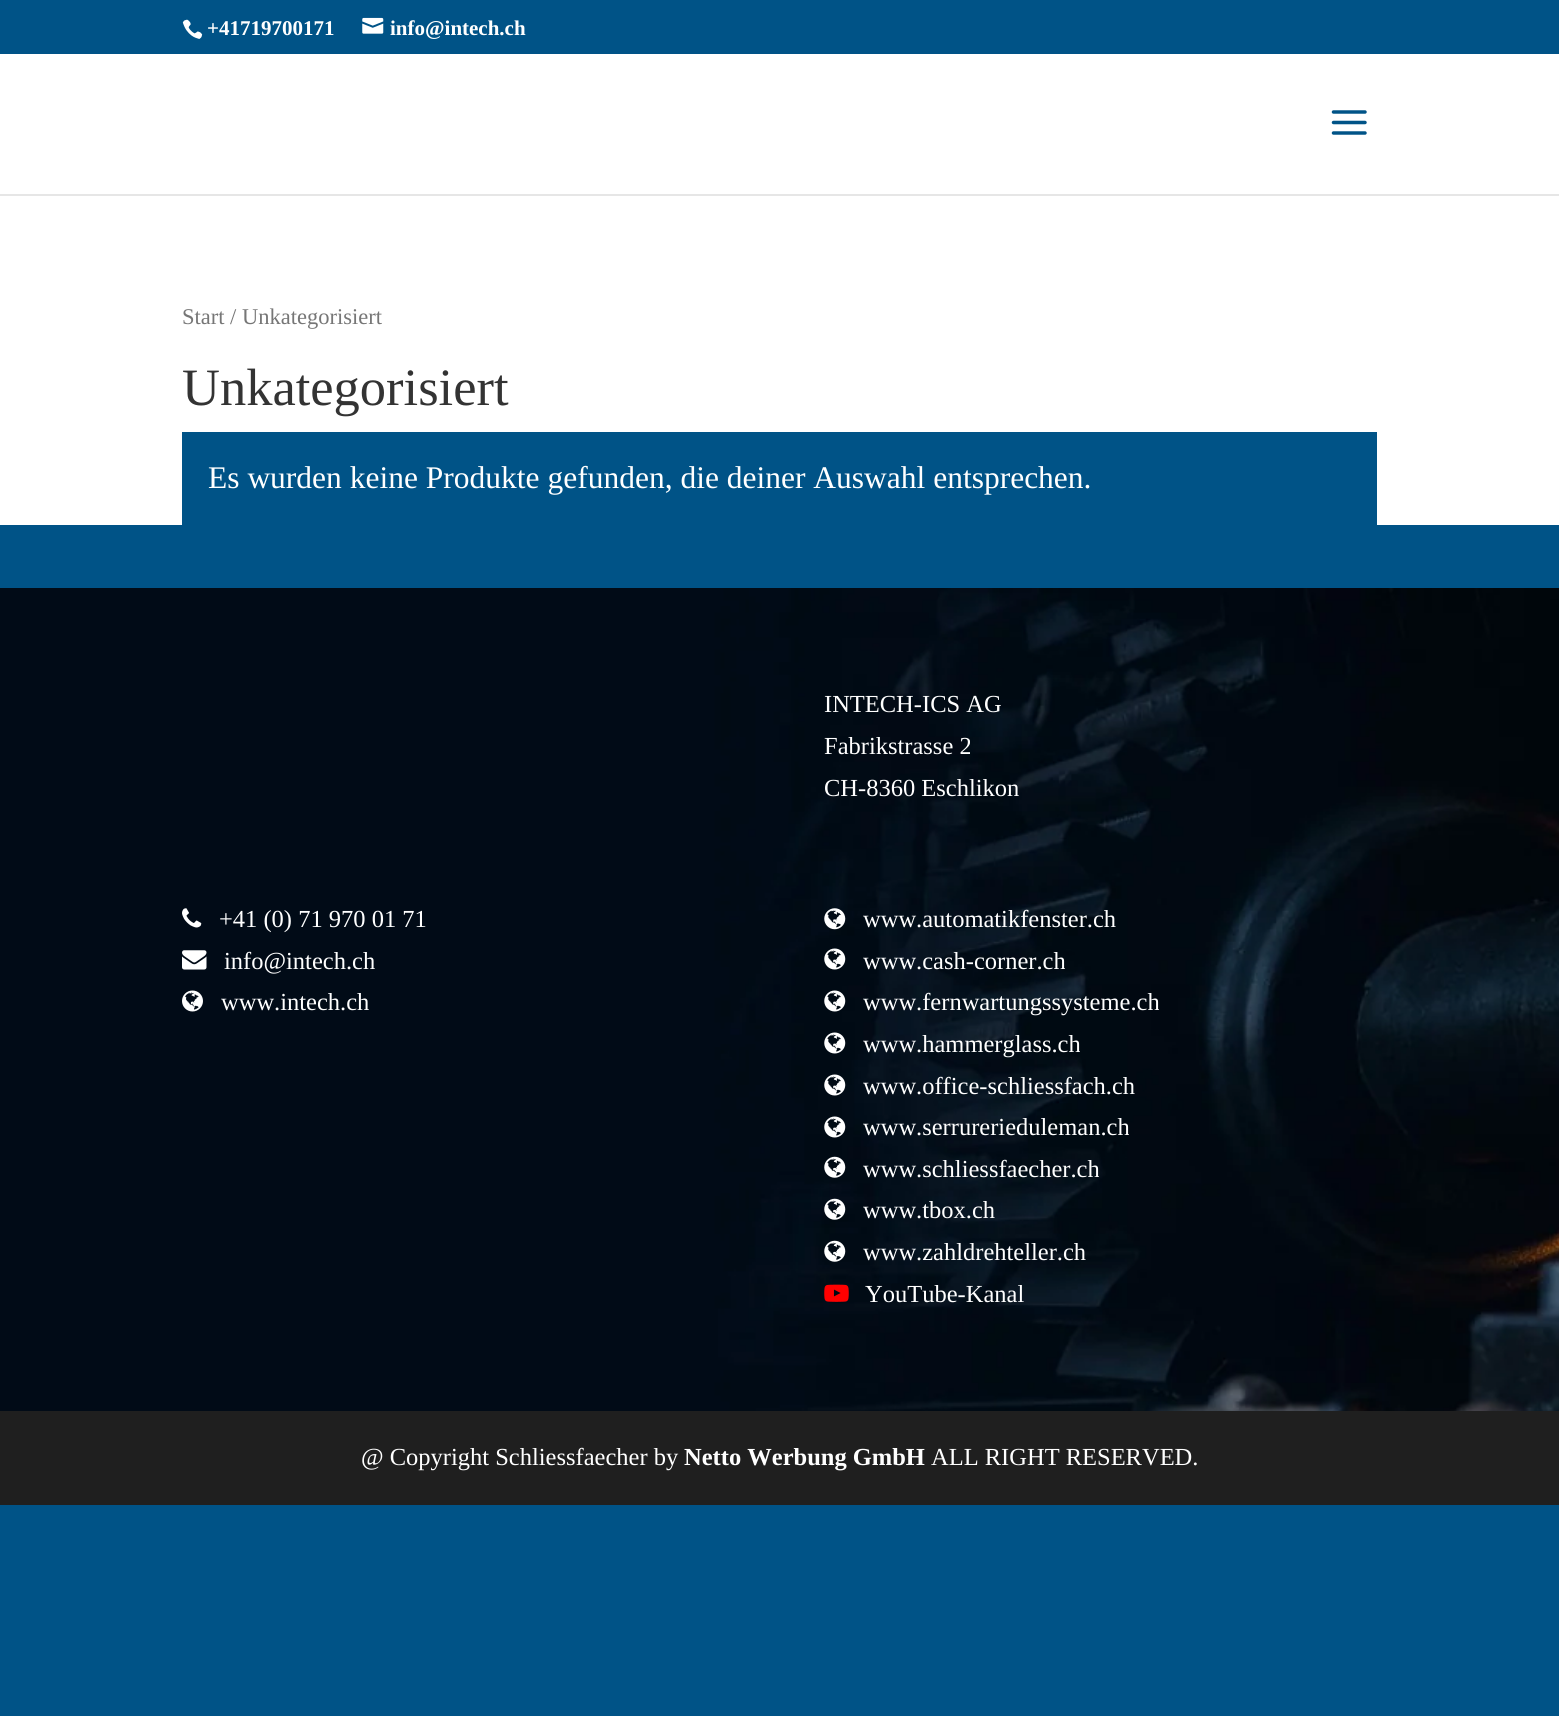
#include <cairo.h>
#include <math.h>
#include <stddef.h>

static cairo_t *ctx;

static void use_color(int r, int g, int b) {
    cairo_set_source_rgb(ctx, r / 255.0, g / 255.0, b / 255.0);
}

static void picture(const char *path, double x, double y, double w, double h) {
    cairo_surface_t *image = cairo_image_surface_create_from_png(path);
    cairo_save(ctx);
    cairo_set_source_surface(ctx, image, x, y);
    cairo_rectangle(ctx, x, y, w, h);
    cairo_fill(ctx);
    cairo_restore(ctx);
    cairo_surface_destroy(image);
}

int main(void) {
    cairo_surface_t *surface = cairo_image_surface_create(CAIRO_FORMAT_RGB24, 1559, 1716);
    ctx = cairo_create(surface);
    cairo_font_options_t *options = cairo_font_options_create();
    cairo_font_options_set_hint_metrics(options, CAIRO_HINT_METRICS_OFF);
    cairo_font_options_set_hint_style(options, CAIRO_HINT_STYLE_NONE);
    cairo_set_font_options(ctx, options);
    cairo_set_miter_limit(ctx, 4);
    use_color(0, 83, 135);
    cairo_paint(ctx);
    picture("img1.png", 182, 19, 21, 20);
    cairo_select_font_face(ctx, "Liberation Serif", CAIRO_FONT_SLANT_NORMAL, CAIRO_FONT_WEIGHT_BOLD);
    cairo_set_font_size(ctx, 21);
    use_color(255, 255, 255);
    cairo_move_to(ctx, 207, 35);
    cairo_show_text(ctx, "+41719700171");
    picture("img2.png", 362, 17, 22, 17);
    cairo_move_to(ctx, 390, 35);
    cairo_show_text(ctx, "info@intech.ch");
    use_color(230, 230, 230);
    cairo_rectangle(ctx, 0, 194, 1559, 2);
    cairo_fill(ctx);
    use_color(255, 255, 255);
    cairo_rectangle(ctx, 0, 54, 1559, 140);
    cairo_fill(ctx);
    picture("img3.png", 1331, 110, 36, 25);
    cairo_rectangle(ctx, 0, 196, 1559, 329);
    cairo_fill(ctx);
    cairo_select_font_face(ctx, "Liberation Serif", CAIRO_FONT_SLANT_NORMAL, CAIRO_FONT_WEIGHT_NORMAL);
    cairo_set_font_size(ctx, 22.5);
    use_color(118, 118, 118);
    cairo_move_to(ctx, 182, 324);
    cairo_show_text(ctx, "Start / Unkategorisiert");
    cairo_set_font_size(ctx, 52.5);
    use_color(51, 51, 51);
    cairo_move_to(ctx, 182, 405);
    cairo_show_text(ctx, "Unkategorisiert");
    use_color(0, 83, 135);
    cairo_rectangle(ctx, 182, 432, 1195, 93);
    cairo_fill(ctx);
    cairo_set_font_size(ctx, 31.5);
    use_color(255, 255, 255);
    cairo_move_to(ctx, 208, 488);
    cairo_show_text(ctx, "Es wurden keine Produkte gefunden, die deiner Auswahl entsprechen.");
    picture("img4.png", 0, 588, 1559, 823);
    cairo_set_font_size(ctx, 24.5);
    cairo_move_to(ctx, 824, 712);
    cairo_show_text(ctx, "INTECH-ICS AG");
    cairo_move_to(ctx, 824, 754);
    cairo_show_text(ctx, "Fabrikstrasse 2");
    cairo_move_to(ctx, 824, 796);
    cairo_show_text(ctx, "CH-8360 Eschlikon");
    picture("img5.png", 182, 908, 20, 20);
    cairo_move_to(ctx, 219, 927);
    cairo_show_text(ctx, "+41 (0) 71 970 01 71");
    picture("img6.png", 182, 950, 25, 20);
    cairo_move_to(ctx, 224, 969);
    cairo_show_text(ctx, "info@intech.ch");
    picture("img7.png", 182, 990, 21, 22);
    cairo_move_to(ctx, 221, 1010);
    cairo_show_text(ctx, "www.intech.ch");
    picture("img8.png", 824, 908, 22, 22);
    cairo_move_to(ctx, 863, 927);
    cairo_show_text(ctx, "www.automatikfenster.ch");
    picture("img9.png", 824, 948, 22, 22);
    cairo_move_to(ctx, 863, 969);
    cairo_show_text(ctx, "www.cash-corner.ch");
    picture("img10.png", 824, 990, 22, 22);
    cairo_move_to(ctx, 863, 1010);
    cairo_show_text(ctx, "www.fernwartungssysteme.ch");
    picture("img9.png", 824, 1032, 22, 22);
    cairo_move_to(ctx, 863, 1052);
    cairo_show_text(ctx, "www.hammerglass.ch");
    picture("img11.png", 824, 1074, 22, 22);
    cairo_move_to(ctx, 863, 1094);
    cairo_show_text(ctx, "www.office-schliessfach.ch");
    picture("img12.png", 824, 1116, 22, 22);
    cairo_move_to(ctx, 863, 1135);
    cairo_show_text(ctx, "www.serrurerieduleman.ch");
    picture("img13.png", 824, 1156, 22, 22);
    cairo_move_to(ctx, 863, 1177);
    cairo_show_text(ctx, "www.schliessfaecher.ch");
    picture("img14.png", 824, 1198, 22, 22);
    cairo_move_to(ctx, 863, 1218);
    cairo_show_text(ctx, "www.tbox.ch");
    picture("img15.png", 824, 1240, 22, 22);
    cairo_move_to(ctx, 863, 1260);
    cairo_show_text(ctx, "www.zahldrehteller.ch");
    picture("img16.png", 824, 1284, 25, 18);
    cairo_move_to(ctx, 865, 1302);
    cairo_show_text(ctx, "YouTube-Kanal");
    use_color(31, 31, 31);
    cairo_rectangle(ctx, 0, 1411, 1559, 94);
    cairo_fill(ctx);
    use_color(255, 255, 255);
    cairo_move_to(ctx, 361, 1465);
    cairo_show_text(ctx, "@ Copyright Schliessfaecher by");
    cairo_select_font_face(ctx, "Liberation Serif", CAIRO_FONT_SLANT_NORMAL, CAIRO_FONT_WEIGHT_BOLD);
    cairo_move_to(ctx, 684, 1465);
    cairo_show_text(ctx, "Netto Werbung GmbH");
    cairo_select_font_face(ctx, "Liberation Serif", CAIRO_FONT_SLANT_NORMAL, CAIRO_FONT_WEIGHT_NORMAL);
    cairo_move_to(ctx, 931, 1465);
    cairo_show_text(ctx, "ALL RIGHT RESERVED.");
    cairo_surface_write_to_png(surface, "result.png");
    cairo_font_options_destroy(options);
    cairo_destroy(ctx);
    cairo_surface_destroy(surface);
    return 0;
}
